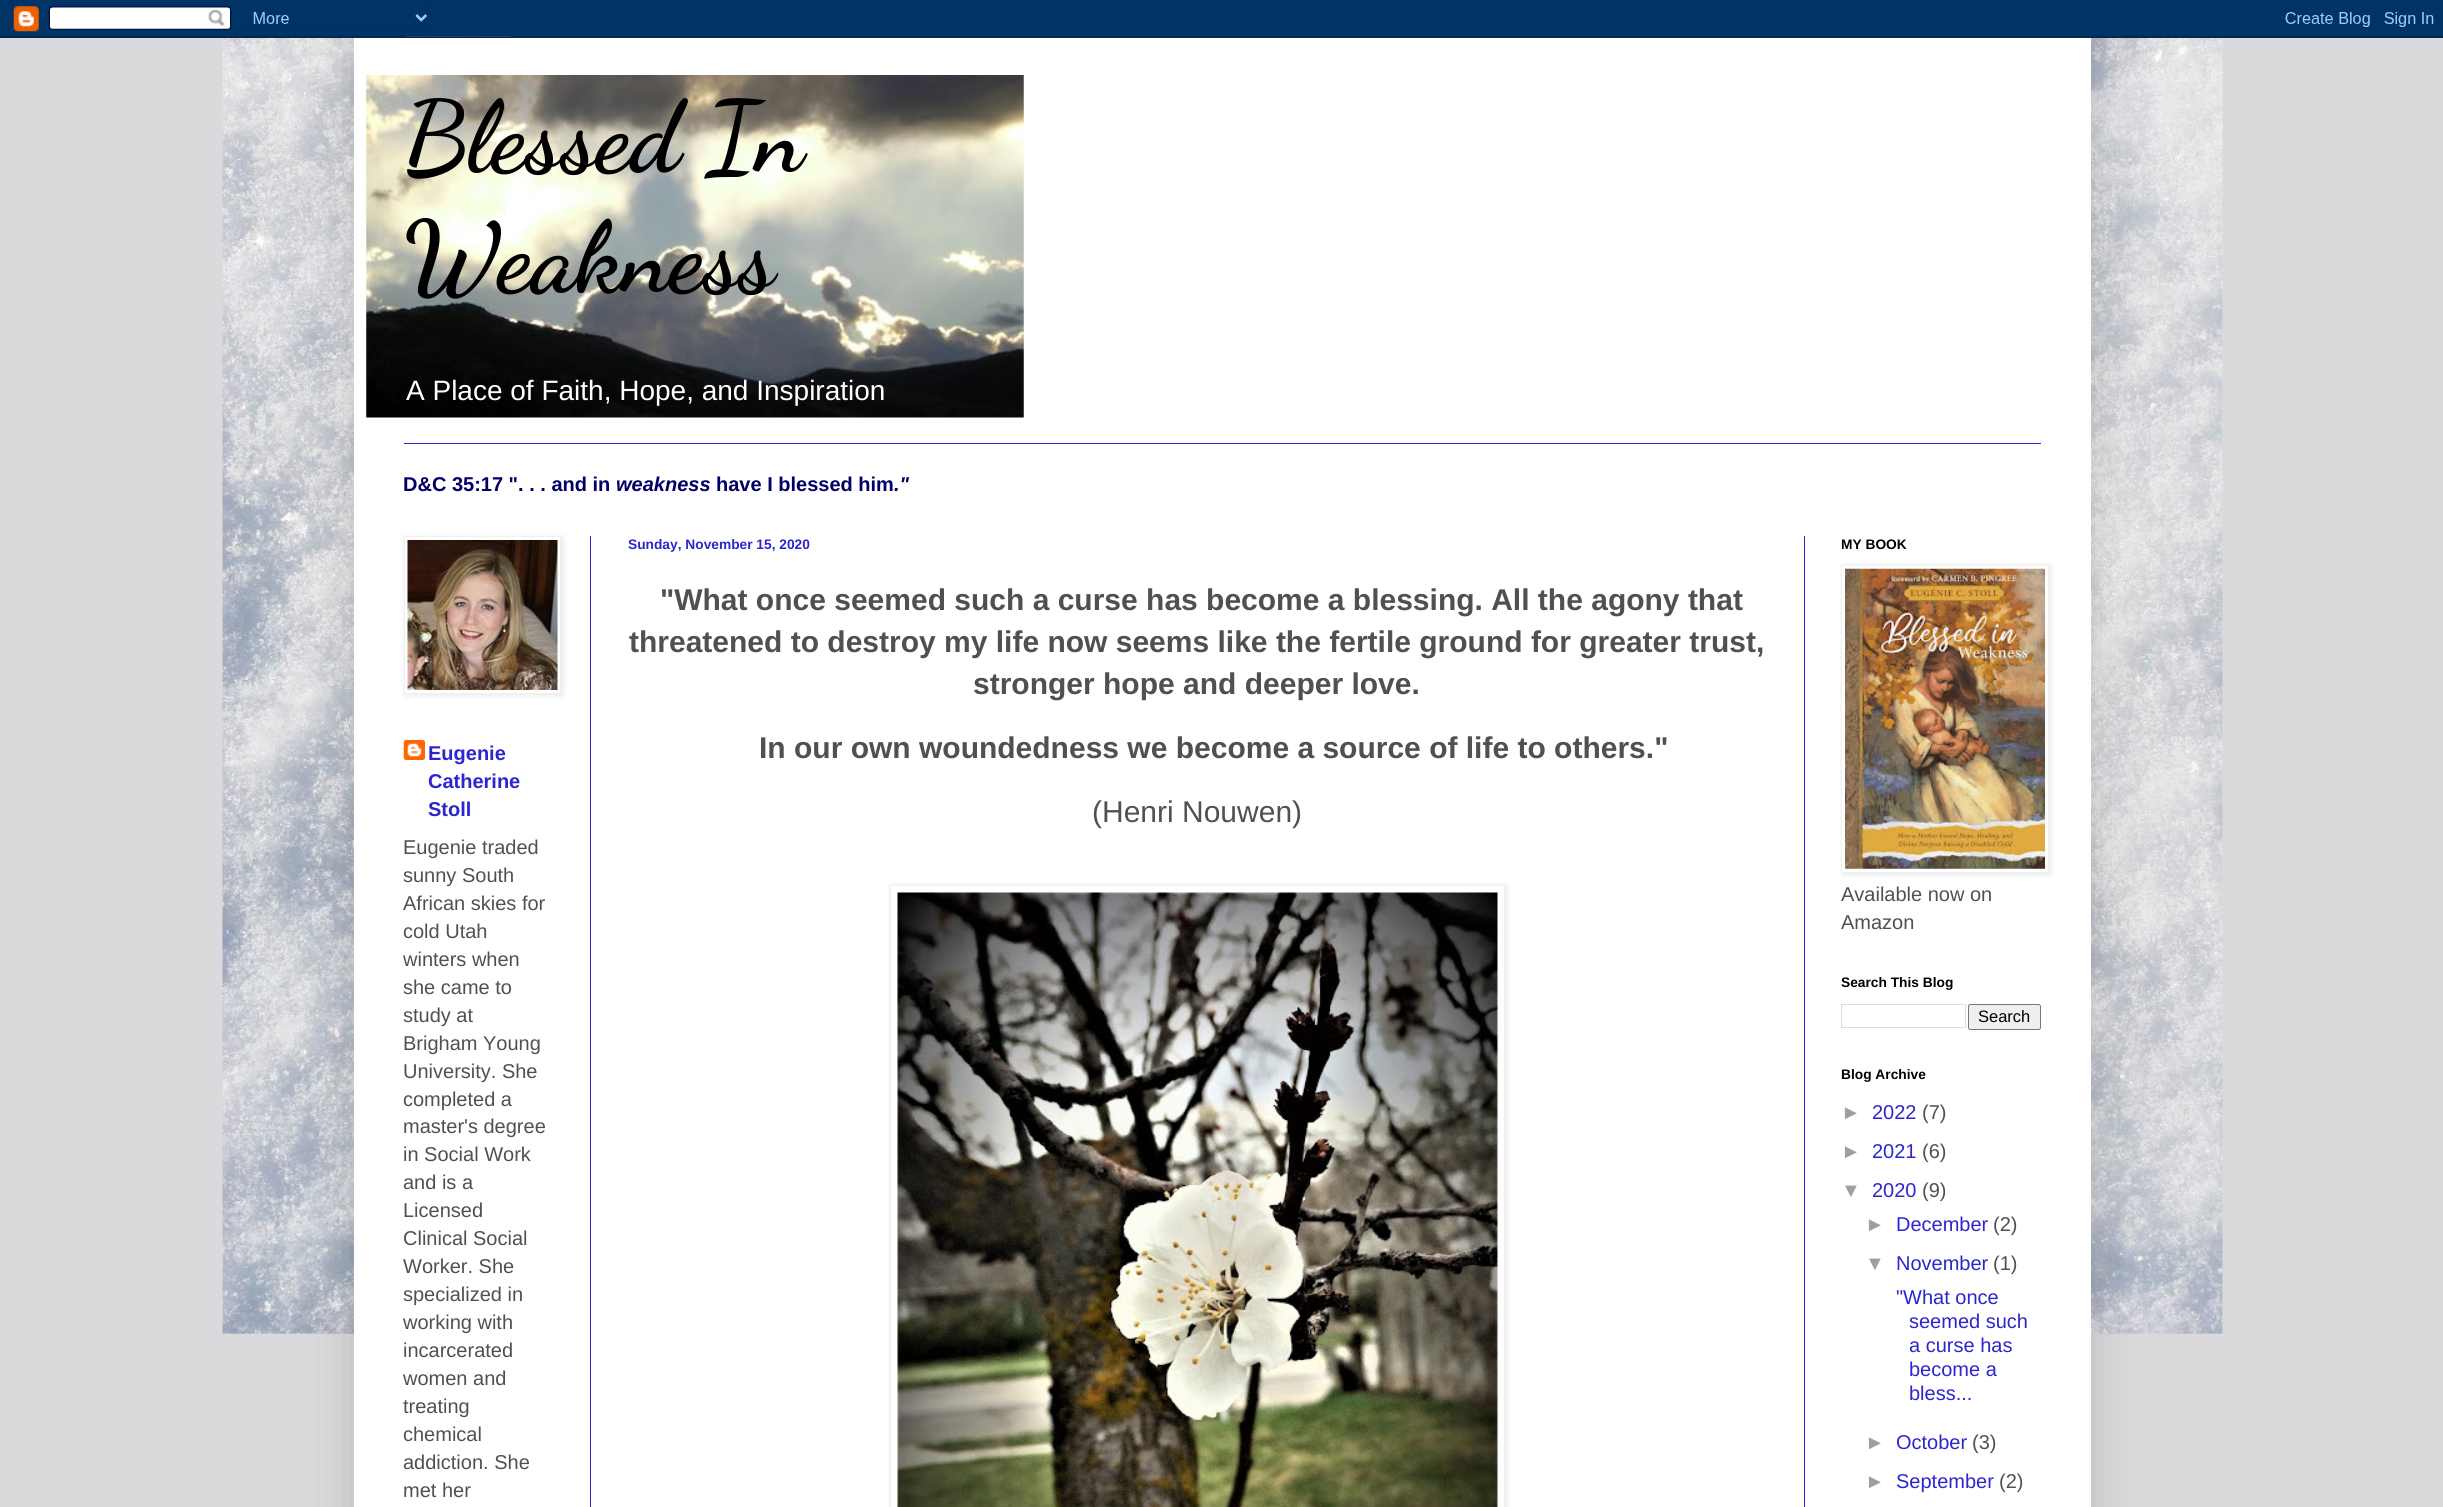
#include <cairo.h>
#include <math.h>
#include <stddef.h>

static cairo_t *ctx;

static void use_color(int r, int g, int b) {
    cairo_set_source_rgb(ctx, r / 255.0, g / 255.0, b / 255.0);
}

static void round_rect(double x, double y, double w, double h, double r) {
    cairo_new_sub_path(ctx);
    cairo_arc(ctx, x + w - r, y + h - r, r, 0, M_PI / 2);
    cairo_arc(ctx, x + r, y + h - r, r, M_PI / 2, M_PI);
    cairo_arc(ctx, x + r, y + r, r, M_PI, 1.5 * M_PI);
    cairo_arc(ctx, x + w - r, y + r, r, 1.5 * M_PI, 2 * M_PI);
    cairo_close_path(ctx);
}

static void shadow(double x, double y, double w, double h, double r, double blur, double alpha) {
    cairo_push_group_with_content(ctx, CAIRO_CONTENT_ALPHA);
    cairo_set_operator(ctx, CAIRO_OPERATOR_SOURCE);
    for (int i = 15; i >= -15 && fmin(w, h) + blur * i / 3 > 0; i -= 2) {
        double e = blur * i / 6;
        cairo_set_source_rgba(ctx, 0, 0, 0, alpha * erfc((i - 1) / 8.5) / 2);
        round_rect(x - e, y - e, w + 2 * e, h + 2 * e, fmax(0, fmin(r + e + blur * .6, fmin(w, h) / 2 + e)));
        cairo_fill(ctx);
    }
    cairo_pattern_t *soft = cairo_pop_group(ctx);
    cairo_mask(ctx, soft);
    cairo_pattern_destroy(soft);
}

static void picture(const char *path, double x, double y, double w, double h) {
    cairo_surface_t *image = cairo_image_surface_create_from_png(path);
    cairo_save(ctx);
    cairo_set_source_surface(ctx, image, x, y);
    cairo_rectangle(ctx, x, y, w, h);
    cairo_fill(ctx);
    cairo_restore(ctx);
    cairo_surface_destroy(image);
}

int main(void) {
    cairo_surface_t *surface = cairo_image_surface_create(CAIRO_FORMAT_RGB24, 2443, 1507);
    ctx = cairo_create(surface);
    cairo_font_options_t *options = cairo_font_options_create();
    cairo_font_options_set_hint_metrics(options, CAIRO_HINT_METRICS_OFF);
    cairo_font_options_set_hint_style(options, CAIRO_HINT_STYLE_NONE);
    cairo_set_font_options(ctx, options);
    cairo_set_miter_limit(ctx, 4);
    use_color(218, 218, 220);
    cairo_paint(ctx);
    picture("img1.png", 222, 36, 2001, 1298);
    use_color(0, 0, 0);
    shadow(354, 38, 1737, 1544, 0, 25, 0.15);
    picture("img2.png", 0, 0, 2443, 38);
    use_color(255, 255, 255);
    cairo_rectangle(ctx, 354, 38, 1737, 1469);
    cairo_fill(ctx);
    picture("img3.png", 366, 75, 658, 343);
    cairo_select_font_face(ctx, "Dancing Script", CAIRO_FONT_SLANT_NORMAL, CAIRO_FONT_WEIGHT_BOLD);
    cairo_set_font_size(ctx, 100);
    use_color(0, 0, 0);
    cairo_move_to(ctx, 403, 170);
    cairo_show_text(ctx, "Blessed In");
    cairo_move_to(ctx, 403, 290);
    cairo_show_text(ctx, "Weakness");
    cairo_select_font_face(ctx, "Liberation Sans", CAIRO_FONT_SLANT_NORMAL, CAIRO_FONT_WEIGHT_NORMAL);
    cairo_set_font_size(ctx, 28);
    use_color(255, 255, 255);
    cairo_move_to(ctx, 406, 400);
    cairo_show_text(ctx, "A Place of Faith, Hope, and Inspiration");
    use_color(45, 37, 206);
    cairo_rectangle(ctx, 404, 443, 1637, 1);
    cairo_fill(ctx);
    cairo_select_font_face(ctx, "Liberation Sans", CAIRO_FONT_SLANT_NORMAL, CAIRO_FONT_WEIGHT_BOLD);
    cairo_set_font_size(ctx, 20);
    use_color(0, 0, 102);
    cairo_move_to(ctx, 403, 491);
    cairo_show_text(ctx, "D&C 35:17 \". . . and in");
    cairo_select_font_face(ctx, "Liberation Sans", CAIRO_FONT_SLANT_ITALIC, CAIRO_FONT_WEIGHT_BOLD);
    cairo_move_to(ctx, 616, 491);
    cairo_show_text(ctx, "weakness");
    cairo_select_font_face(ctx, "Liberation Sans", CAIRO_FONT_SLANT_NORMAL, CAIRO_FONT_WEIGHT_BOLD);
    cairo_move_to(ctx, 716, 491);
    cairo_show_text(ctx, "have I blessed him");
    cairo_select_font_face(ctx, "Liberation Sans", CAIRO_FONT_SLANT_ITALIC, CAIRO_FONT_WEIGHT_BOLD);
    cairo_move_to(ctx, 894, 491);
    cairo_show_text(ctx, ".\"");
    use_color(45, 37, 206);
    cairo_rectangle(ctx, 590, 536, 1, 971);
    cairo_fill(ctx);
    cairo_rectangle(ctx, 1804, 536, 1, 971);
    cairo_fill(ctx);
    use_color(0, 0, 0);
    shadow(405, 538, 158, 157, 0, 3, 0.1);
    use_color(255, 255, 255);
    cairo_rectangle(ctx, 404.5, 536.5, 156, 157);
    cairo_fill_preserve(ctx);
    use_color(240, 240, 240);
    cairo_set_line_width(ctx, 1);
    cairo_stroke(ctx);
    picture("img4.png", 407, 540, 151, 150);
    picture("img5.png", 403, 740, 22, 20);
    cairo_select_font_face(ctx, "Liberation Sans", CAIRO_FONT_SLANT_NORMAL, CAIRO_FONT_WEIGHT_BOLD);
    use_color(45, 37, 206);
    cairo_move_to(ctx, 428, 760);
    cairo_show_text(ctx, "Eugenie");
    cairo_move_to(ctx, 428, 788);
    cairo_show_text(ctx, "Catherine");
    cairo_move_to(ctx, 428, 816);
    cairo_show_text(ctx, "Stoll");
    cairo_select_font_face(ctx, "Liberation Sans", CAIRO_FONT_SLANT_NORMAL, CAIRO_FONT_WEIGHT_NORMAL);
    use_color(80, 80, 80);
    cairo_move_to(ctx, 403, 854);
    cairo_show_text(ctx, "Eugenie traded");
    cairo_move_to(ctx, 403, 882);
    cairo_show_text(ctx, "sunny South");
    cairo_move_to(ctx, 403, 910);
    cairo_show_text(ctx, "African skies for");
    cairo_move_to(ctx, 403, 938);
    cairo_show_text(ctx, "cold Utah");
    cairo_move_to(ctx, 403, 966);
    cairo_show_text(ctx, "winters when");
    cairo_move_to(ctx, 403, 994);
    cairo_show_text(ctx, "she came to");
    cairo_move_to(ctx, 403, 1022);
    cairo_show_text(ctx, "study at");
    cairo_move_to(ctx, 403, 1050);
    cairo_show_text(ctx, "Brigham Young");
    cairo_move_to(ctx, 403, 1078);
    cairo_show_text(ctx, "University. She");
    cairo_move_to(ctx, 403, 1106);
    cairo_show_text(ctx, "completed a");
    cairo_move_to(ctx, 403, 1133);
    cairo_show_text(ctx, "master's degree");
    cairo_move_to(ctx, 403, 1161);
    cairo_show_text(ctx, "in Social Work");
    cairo_move_to(ctx, 403, 1189);
    cairo_show_text(ctx, "and is a");
    cairo_move_to(ctx, 403, 1217);
    cairo_show_text(ctx, "Licensed");
    cairo_move_to(ctx, 403, 1245);
    cairo_show_text(ctx, "Clinical Social");
    cairo_move_to(ctx, 403, 1273);
    cairo_show_text(ctx, "Worker. She");
    cairo_move_to(ctx, 403, 1301);
    cairo_show_text(ctx, "specialized in");
    cairo_move_to(ctx, 403, 1329);
    cairo_show_text(ctx, "working with");
    cairo_move_to(ctx, 403, 1357);
    cairo_show_text(ctx, "incarcerated");
    cairo_move_to(ctx, 403, 1385);
    cairo_show_text(ctx, "women and");
    cairo_move_to(ctx, 403, 1413);
    cairo_show_text(ctx, "treating");
    cairo_move_to(ctx, 403, 1441);
    cairo_show_text(ctx, "chemical");
    cairo_move_to(ctx, 403, 1469);
    cairo_show_text(ctx, "addiction. She");
    cairo_move_to(ctx, 403, 1497);
    cairo_show_text(ctx, "met her");
    cairo_select_font_face(ctx, "Liberation Sans", CAIRO_FONT_SLANT_NORMAL, CAIRO_FONT_WEIGHT_BOLD);
    cairo_set_font_size(ctx, 13.75);
    use_color(45, 37, 206);
    cairo_move_to(ctx, 628, 549);
    cairo_show_text(ctx, "Sunday, November 15, 2020");
    cairo_set_font_size(ctx, 30);
    use_color(80, 80, 80);
    cairo_move_to(ctx, 660, 610);
    cairo_show_text(ctx, "\"What once seemed such a curse has become a blessing. All the agony that");
    cairo_move_to(ctx, 629, 652);
    cairo_show_text(ctx, "threatened to destroy my life now seems like the fertile ground for greater trust,");
    cairo_move_to(ctx, 973, 694);
    cairo_show_text(ctx, "stronger hope and deeper love.");
    cairo_move_to(ctx, 759, 758);
    cairo_show_text(ctx, "In our own woundedness we become a source of life to others.\"");
    cairo_select_font_face(ctx, "Liberation Sans", CAIRO_FONT_SLANT_NORMAL, CAIRO_FONT_WEIGHT_NORMAL);
    cairo_move_to(ctx, 1092, 822);
    cairo_show_text(ctx, "(Henri Nouwen)");
    cairo_save(ctx);
    cairo_set_fill_rule(ctx, CAIRO_FILL_RULE_EVEN_ODD);
    cairo_new_path(ctx);
    cairo_move_to(ctx, 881, 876);
    cairo_line_to(ctx, 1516, 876);
    cairo_line_to(ctx, 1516, 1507);
    cairo_line_to(ctx, 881, 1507);
    cairo_close_path(ctx);
    cairo_move_to(ctx, 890, 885);
    cairo_line_to(ctx, 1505, 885);
    cairo_line_to(ctx, 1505, 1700);
    cairo_line_to(ctx, 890, 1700);
    cairo_close_path(ctx);
    cairo_clip(ctx);
    use_color(0, 0, 0);
    shadow(891, 886, 615, 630, 0, 3, 0.1);
    cairo_restore(ctx);
    cairo_rectangle(ctx, 890.5, 885.5, 614, 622);
    use_color(240, 240, 240);
    cairo_stroke(ctx);
    picture("img6.png", 897, 892, 601, 615);
    cairo_select_font_face(ctx, "Liberation Sans", CAIRO_FONT_SLANT_NORMAL, CAIRO_FONT_WEIGHT_BOLD);
    cairo_set_font_size(ctx, 13.75);
    use_color(0, 0, 0);
    cairo_move_to(ctx, 1841, 549);
    cairo_show_text(ctx, "MY BOOK");
    use_color(0, 0, 0);
    shadow(1843, 566, 207, 308, 0, 3, 0.1);
    use_color(255, 255, 255);
    cairo_rectangle(ctx, 1841.5, 565.5, 207, 307);
    cairo_fill_preserve(ctx);
    use_color(240, 240, 240);
    cairo_stroke(ctx);
    picture("img7.png", 1845, 568, 200, 301);
    cairo_select_font_face(ctx, "Liberation Sans", CAIRO_FONT_SLANT_NORMAL, CAIRO_FONT_WEIGHT_NORMAL);
    cairo_set_font_size(ctx, 20);
    use_color(80, 80, 80);
    cairo_move_to(ctx, 1841, 901);
    cairo_show_text(ctx, "Available now on");
    cairo_move_to(ctx, 1841, 929);
    cairo_show_text(ctx, "Amazon");
    cairo_select_font_face(ctx, "Liberation Sans", CAIRO_FONT_SLANT_NORMAL, CAIRO_FONT_WEIGHT_BOLD);
    cairo_set_font_size(ctx, 13.75);
    use_color(0, 0, 0);
    cairo_move_to(ctx, 1841, 987);
    cairo_show_text(ctx, "Search This Blog");
    cairo_rectangle(ctx, 1841.5, 1004.5, 124, 23);
    use_color(221, 221, 221);
    cairo_stroke(ctx);
    use_color(239, 239, 239);
    round_rect(1968.5, 1004.5, 72, 25, 2);
    cairo_fill_preserve(ctx);
    use_color(118, 118, 118);
    cairo_stroke(ctx);
    cairo_select_font_face(ctx, "Liberation Sans", CAIRO_FONT_SLANT_NORMAL, CAIRO_FONT_WEIGHT_NORMAL);
    cairo_set_font_size(ctx, 16.5);
    use_color(0, 0, 0);
    cairo_move_to(ctx, 1978, 1022);
    cairo_show_text(ctx, "Search");
    cairo_select_font_face(ctx, "Liberation Sans", CAIRO_FONT_SLANT_NORMAL, CAIRO_FONT_WEIGHT_BOLD);
    cairo_set_font_size(ctx, 13.75);
    cairo_move_to(ctx, 1841, 1079);
    cairo_show_text(ctx, "Blog Archive");
    cairo_select_font_face(ctx, "Liberation Sans", CAIRO_FONT_SLANT_NORMAL, CAIRO_FONT_WEIGHT_NORMAL);
    cairo_set_font_size(ctx, 20);
    use_color(159, 159, 159);
    cairo_move_to(ctx, 1841, 1119);
    cairo_show_text(ctx, "►");
    use_color(45, 37, 206);
    cairo_move_to(ctx, 1872, 1119);
    cairo_show_text(ctx, "2022");
    use_color(80, 80, 80);
    cairo_move_to(ctx, 1922, 1119);
    cairo_show_text(ctx, "(7)");
    use_color(159, 159, 159);
    cairo_move_to(ctx, 1841, 1158);
    cairo_show_text(ctx, "►");
    use_color(45, 37, 206);
    cairo_move_to(ctx, 1872, 1158);
    cairo_show_text(ctx, "2021");
    use_color(80, 80, 80);
    cairo_move_to(ctx, 1922, 1158);
    cairo_show_text(ctx, "(6)");
    use_color(159, 159, 159);
    cairo_move_to(ctx, 1841, 1197);
    cairo_show_text(ctx, "▼");
    use_color(45, 37, 206);
    cairo_move_to(ctx, 1872, 1197);
    cairo_show_text(ctx, "2020");
    use_color(80, 80, 80);
    cairo_move_to(ctx, 1922, 1197);
    cairo_show_text(ctx, "(9)");
    use_color(159, 159, 159);
    cairo_move_to(ctx, 1865, 1231);
    cairo_show_text(ctx, "►");
    use_color(45, 37, 206);
    cairo_move_to(ctx, 1896, 1231);
    cairo_show_text(ctx, "December");
    use_color(80, 80, 80);
    cairo_move_to(ctx, 1993, 1231);
    cairo_show_text(ctx, "(2)");
    use_color(159, 159, 159);
    cairo_move_to(ctx, 1865, 1270);
    cairo_show_text(ctx, "▼");
    use_color(45, 37, 206);
    cairo_move_to(ctx, 1896, 1270);
    cairo_show_text(ctx, "November");
    use_color(80, 80, 80);
    cairo_move_to(ctx, 1993, 1270);
    cairo_show_text(ctx, "(1)");
    use_color(45, 37, 206);
    cairo_move_to(ctx, 1896, 1304);
    cairo_show_text(ctx, "\"What once");
    cairo_move_to(ctx, 1909, 1328);
    cairo_show_text(ctx, "seemed such");
    cairo_move_to(ctx, 1909, 1352);
    cairo_show_text(ctx, "a curse has");
    cairo_move_to(ctx, 1909, 1376);
    cairo_show_text(ctx, "become a");
    cairo_move_to(ctx, 1909, 1400);
    cairo_show_text(ctx, "bless...");
    use_color(159, 159, 159);
    cairo_move_to(ctx, 1865, 1449);
    cairo_show_text(ctx, "►");
    use_color(45, 37, 206);
    cairo_move_to(ctx, 1896, 1449);
    cairo_show_text(ctx, "October");
    use_color(80, 80, 80);
    cairo_move_to(ctx, 1972, 1449);
    cairo_show_text(ctx, "(3)");
    use_color(159, 159, 159);
    cairo_move_to(ctx, 1865, 1488);
    cairo_show_text(ctx, "►");
    use_color(45, 37, 206);
    cairo_move_to(ctx, 1896, 1488);
    cairo_show_text(ctx, "September");
    use_color(80, 80, 80);
    cairo_move_to(ctx, 1999, 1488);
    cairo_show_text(ctx, "(2)");
    cairo_surface_write_to_png(surface, "result.png");
    cairo_font_options_destroy(options);
    cairo_destroy(ctx);
    cairo_surface_destroy(surface);
    return 0;
}
